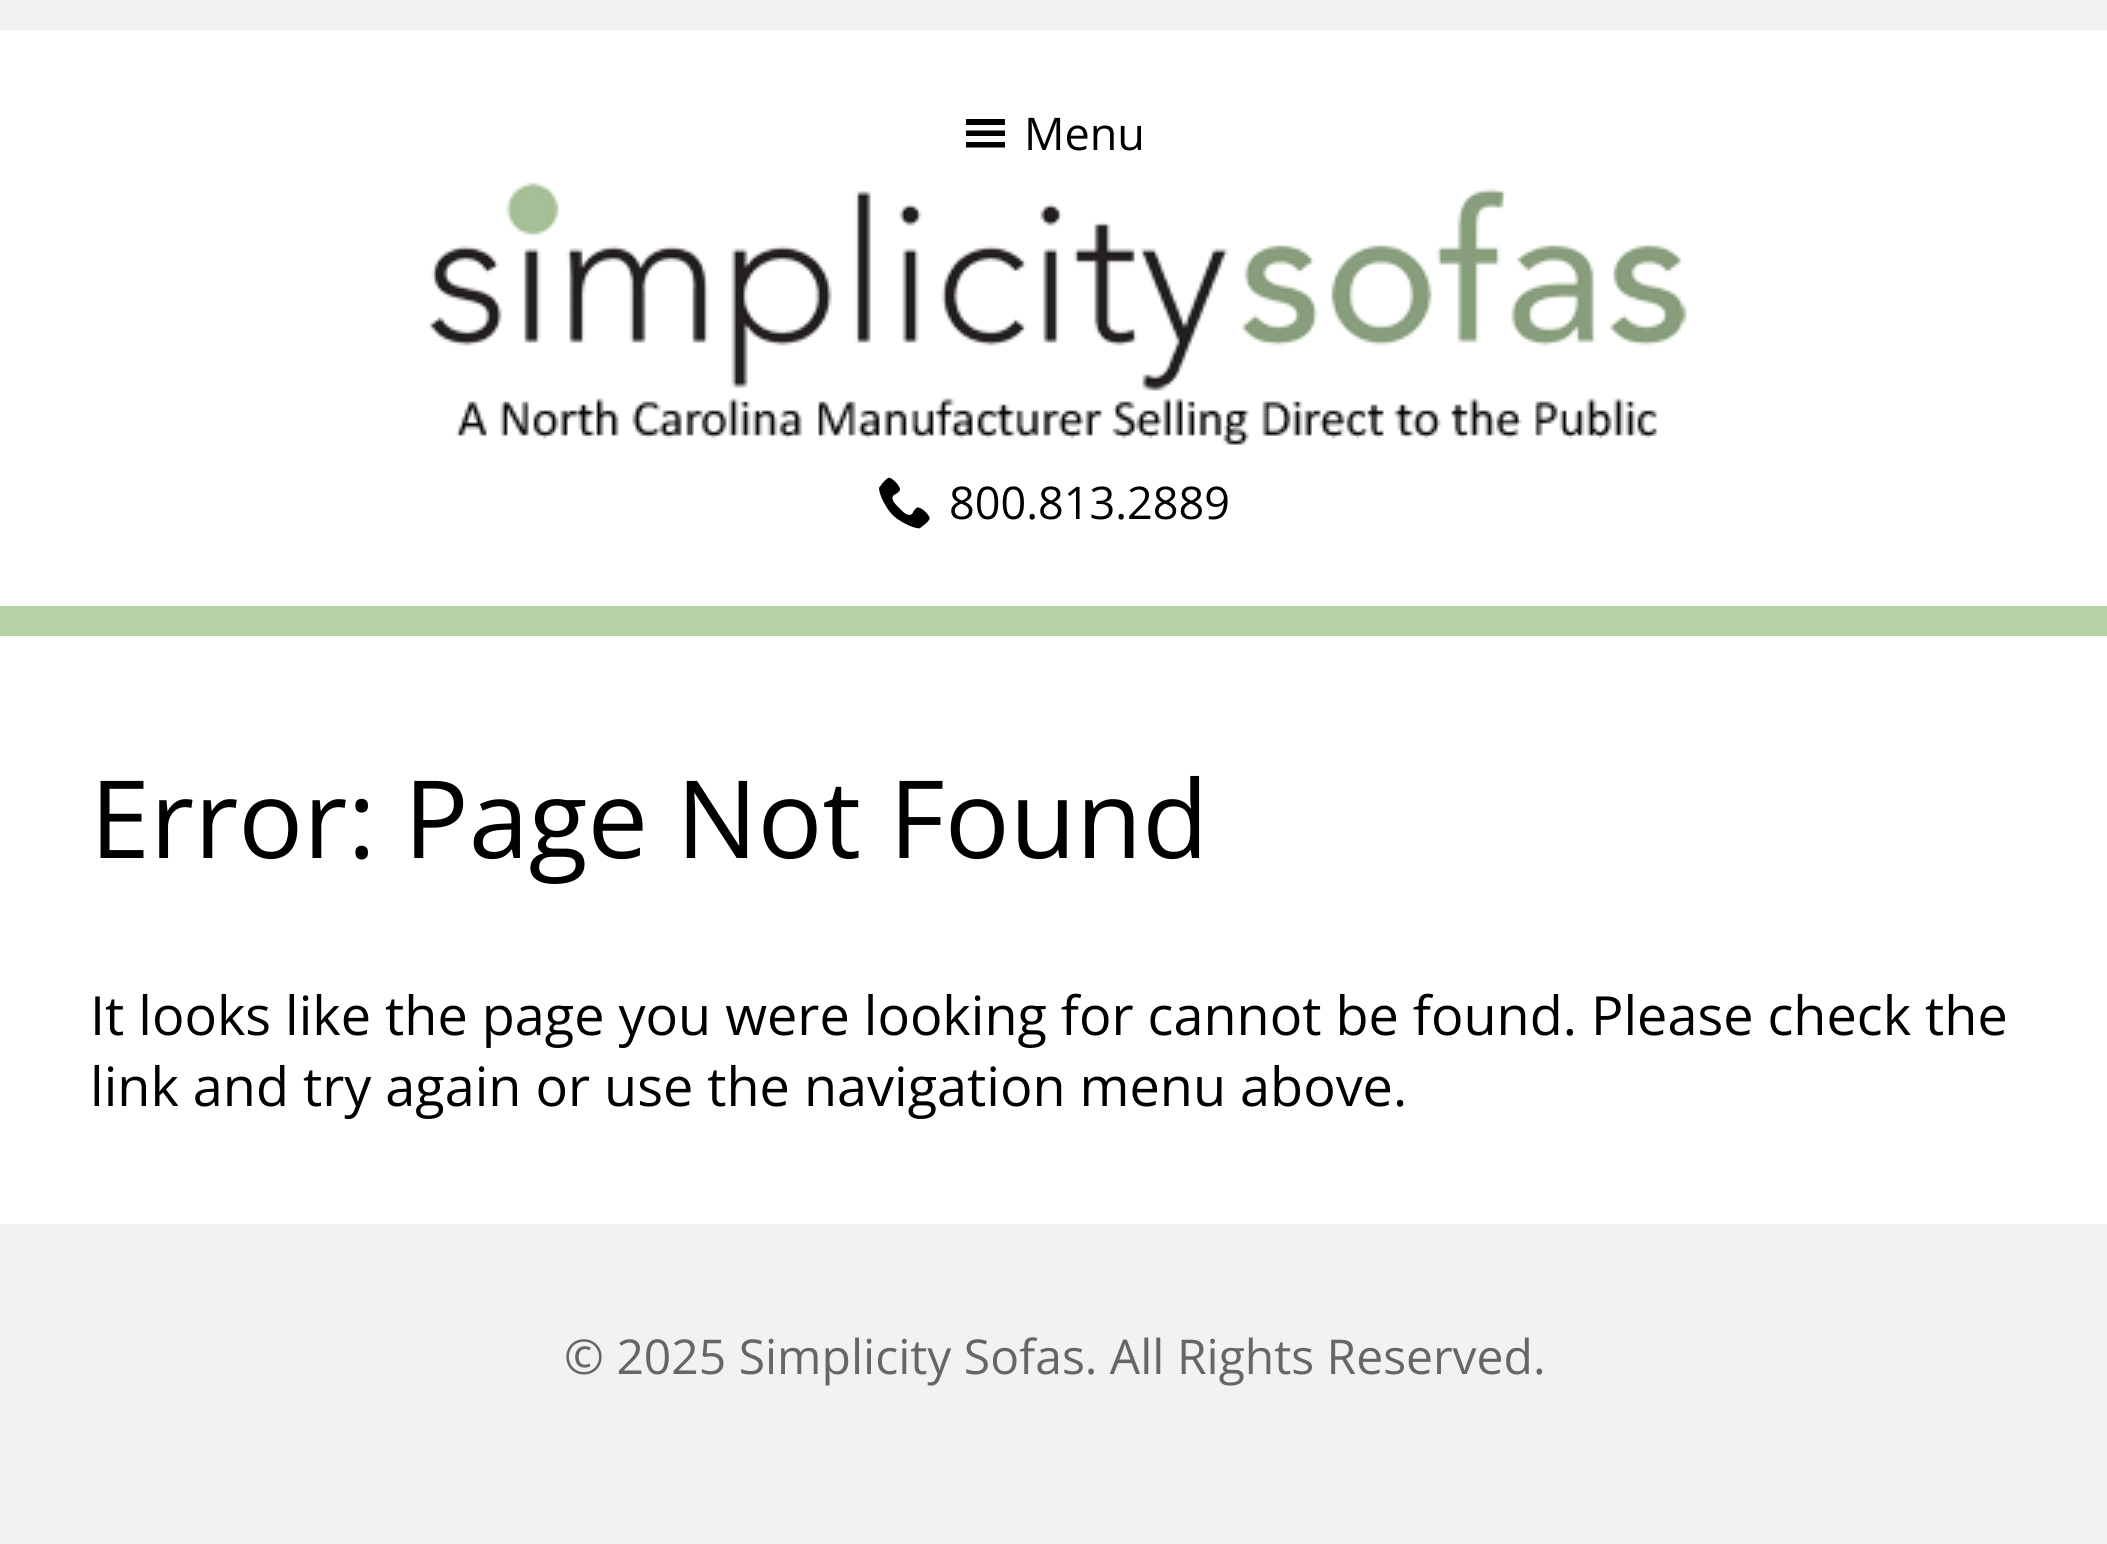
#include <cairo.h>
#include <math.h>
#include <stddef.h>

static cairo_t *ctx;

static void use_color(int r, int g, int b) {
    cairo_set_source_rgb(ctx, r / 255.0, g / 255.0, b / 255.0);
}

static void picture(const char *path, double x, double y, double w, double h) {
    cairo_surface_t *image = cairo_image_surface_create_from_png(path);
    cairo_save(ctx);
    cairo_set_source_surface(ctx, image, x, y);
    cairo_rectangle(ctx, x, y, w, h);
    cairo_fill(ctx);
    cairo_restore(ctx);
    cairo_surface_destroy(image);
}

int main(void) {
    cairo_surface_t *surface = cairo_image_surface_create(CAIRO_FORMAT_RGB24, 2107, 1544);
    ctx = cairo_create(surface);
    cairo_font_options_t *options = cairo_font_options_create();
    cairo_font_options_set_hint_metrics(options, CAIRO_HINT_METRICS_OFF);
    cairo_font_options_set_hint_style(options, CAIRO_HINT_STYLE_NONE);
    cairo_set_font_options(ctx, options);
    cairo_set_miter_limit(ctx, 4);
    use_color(242, 242, 242);
    cairo_paint(ctx);
    use_color(255, 255, 255);
    cairo_rectangle(ctx, 0, 30, 2107, 576);
    cairo_fill(ctx);
    use_color(182, 209, 163);
    cairo_rectangle(ctx, 0, 606, 2107, 30);
    cairo_fill(ctx);
    cairo_select_font_face(ctx, "Open Sans", CAIRO_FONT_SLANT_NORMAL, CAIRO_FONT_WEIGHT_NORMAL);
    cairo_set_font_size(ctx, 45);
    use_color(0, 0, 0);
    cairo_move_to(ctx, 1024, 150);
    cairo_show_text(ctx, "Menu");
    cairo_new_path(ctx);
    cairo_move_to(ctx, 966, 119);
    cairo_line_to(ctx, 1005, 119);
    cairo_line_to(ctx, 1005, 125);
    cairo_line_to(ctx, 966, 125);
    cairo_close_path(ctx);
    cairo_move_to(ctx, 966, 130.5);
    cairo_line_to(ctx, 1005, 130.5);
    cairo_line_to(ctx, 1005, 136);
    cairo_line_to(ctx, 966, 136);
    cairo_close_path(ctx);
    cairo_move_to(ctx, 966, 142);
    cairo_line_to(ctx, 1005, 142);
    cairo_line_to(ctx, 1005, 147.5);
    cairo_line_to(ctx, 966, 147.5);
    cairo_close_path(ctx);
    cairo_fill(ctx);
    picture("img1.png", 428, 182, 1259, 263);
    picture("img2.png", 879, 477, 51, 52);
    cairo_move_to(ctx, 949, 519);
    cairo_show_text(ctx, "800.813.2889");
    use_color(255, 255, 255);
    cairo_rectangle(ctx, 0, 636, 2107, 588);
    cairo_fill(ctx);
    cairo_set_font_size(ctx, 108);
    use_color(0, 0, 0);
    cairo_move_to(ctx, 90, 858);
    cairo_show_text(ctx, "Error: Page Not Found");
    cairo_set_font_size(ctx, 54);
    cairo_move_to(ctx, 90, 1035);
    cairo_show_text(ctx, "It looks like the page you were looking for cannot be found. Please check the");
    cairo_move_to(ctx, 90, 1106);
    cairo_show_text(ctx, "link and try again or use the navigation menu above.");
    cairo_set_font_size(ctx, 48);
    use_color(102, 102, 102);
    cairo_move_to(ctx, 564, 1374);
    cairo_show_text(ctx, "© 2025 Simplicity Sofas. All Rights Reserved.");
    cairo_surface_write_to_png(surface, "result.png");
    cairo_font_options_destroy(options);
    cairo_destroy(ctx);
    cairo_surface_destroy(surface);
    return 0;
}
